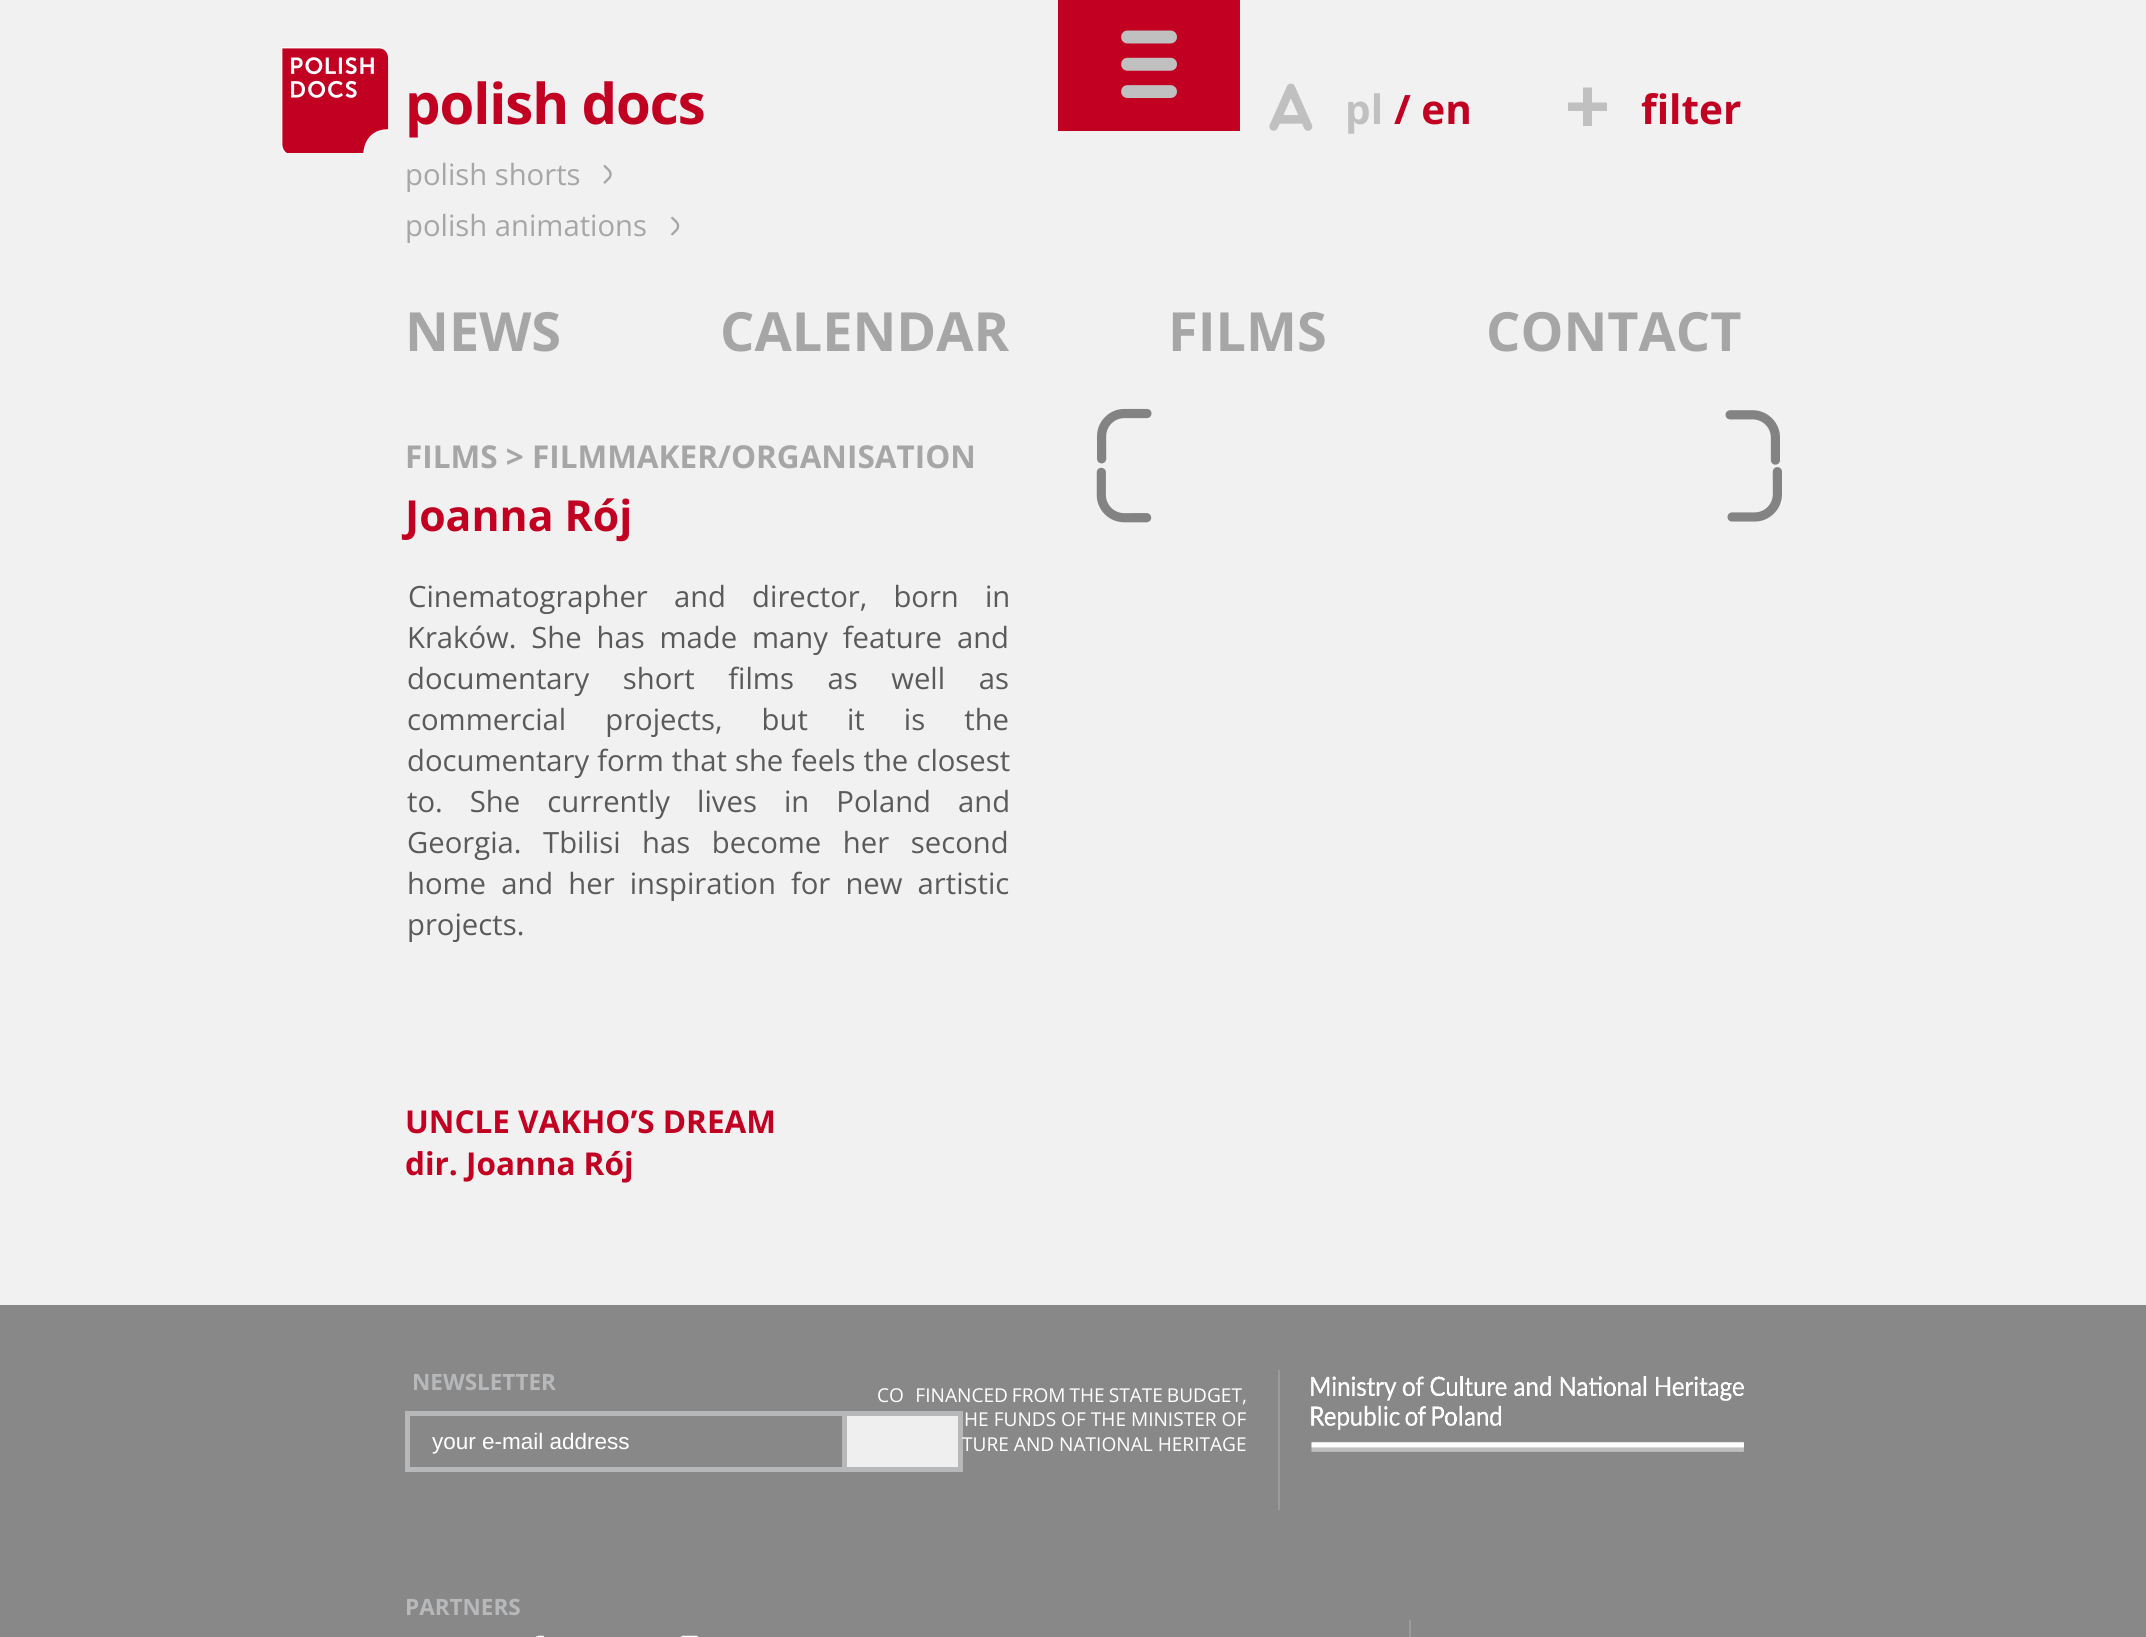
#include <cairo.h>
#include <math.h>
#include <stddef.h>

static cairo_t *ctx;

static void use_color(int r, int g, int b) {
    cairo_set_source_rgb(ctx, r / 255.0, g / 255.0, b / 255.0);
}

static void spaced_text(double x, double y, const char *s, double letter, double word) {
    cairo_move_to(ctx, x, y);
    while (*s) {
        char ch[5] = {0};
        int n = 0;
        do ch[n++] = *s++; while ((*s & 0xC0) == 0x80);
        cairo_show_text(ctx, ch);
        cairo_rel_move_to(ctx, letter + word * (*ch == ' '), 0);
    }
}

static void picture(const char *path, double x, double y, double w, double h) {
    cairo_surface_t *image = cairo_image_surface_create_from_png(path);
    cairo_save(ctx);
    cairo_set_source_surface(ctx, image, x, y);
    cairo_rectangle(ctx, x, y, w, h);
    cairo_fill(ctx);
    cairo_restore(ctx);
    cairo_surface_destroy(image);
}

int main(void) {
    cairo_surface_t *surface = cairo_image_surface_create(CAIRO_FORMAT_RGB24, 2146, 1637);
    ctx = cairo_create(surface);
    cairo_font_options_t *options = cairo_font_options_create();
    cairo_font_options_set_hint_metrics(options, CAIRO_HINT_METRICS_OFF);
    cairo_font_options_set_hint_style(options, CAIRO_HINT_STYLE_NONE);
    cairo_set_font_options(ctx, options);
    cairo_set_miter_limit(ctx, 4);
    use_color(241, 241, 241);
    cairo_paint(ctx);
    picture("img1.png", 281, 47, 108, 106);
    cairo_select_font_face(ctx, "Open Sans", CAIRO_FONT_SLANT_NORMAL, CAIRO_FONT_WEIGHT_BOLD);
    cairo_set_font_size(ctx, 56.25);
    use_color(193, 0, 34);
    spaced_text(405, 124, "polish docs", -1.1, 0);
    cairo_rectangle(ctx, 1058, 0, 182, 131);
    cairo_fill(ctx);
    picture("img2.png", 1121, 30, 56, 68);
    picture("img3.png", 1269, 83, 44, 48);
    cairo_set_font_size(ctx, 40.5);
    use_color(193, 192, 193);
    cairo_move_to(ctx, 1345, 124);
    cairo_show_text(ctx, "pl");
    use_color(193, 0, 34);
    cairo_move_to(ctx, 1394, 124);
    cairo_show_text(ctx, "/ en");
    use_color(193, 192, 193);
    cairo_new_path(ctx);
    cairo_move_to(ctx, 1592, 87.5);
    cairo_line_to(ctx, 1592, 102.5);
    cairo_line_to(ctx, 1607, 102.5);
    cairo_line_to(ctx, 1607, 111);
    cairo_line_to(ctx, 1592, 111);
    cairo_line_to(ctx, 1592, 126);
    cairo_line_to(ctx, 1583, 126);
    cairo_line_to(ctx, 1583, 111);
    cairo_line_to(ctx, 1568, 111);
    cairo_line_to(ctx, 1568, 102.5);
    cairo_line_to(ctx, 1583, 102.5);
    cairo_line_to(ctx, 1583, 87.5);
    cairo_close_path(ctx);
    cairo_fill(ctx);
    use_color(193, 0, 34);
    cairo_move_to(ctx, 1641, 124);
    cairo_show_text(ctx, "filter");
    cairo_select_font_face(ctx, "Open Sans", CAIRO_FONT_SLANT_NORMAL, CAIRO_FONT_WEIGHT_NORMAL);
    cairo_set_font_size(ctx, 29.25);
    use_color(166, 166, 166);
    cairo_move_to(ctx, 405, 185);
    cairo_show_text(ctx, "polish shorts");
    picture("img4.png", 603, 165, 9, 19);
    cairo_move_to(ctx, 405, 236);
    cairo_show_text(ctx, "polish animations");
    picture("img5.png", 671, 216, 9, 20);
    cairo_select_font_face(ctx, "Open Sans", CAIRO_FONT_SLANT_NORMAL, CAIRO_FONT_WEIGHT_BOLD);
    cairo_set_font_size(ctx, 54);
    cairo_move_to(ctx, 405, 351);
    cairo_show_text(ctx, "NEWS");
    cairo_move_to(ctx, 720, 351);
    cairo_show_text(ctx, "CALENDAR");
    cairo_move_to(ctx, 1168, 351);
    cairo_show_text(ctx, "FILMS");
    cairo_move_to(ctx, 1486, 351);
    cairo_show_text(ctx, "CONTACT");
    cairo_set_font_size(ctx, 31.5);
    cairo_move_to(ctx, 405, 468);
    cairo_show_text(ctx, "FILMS > FILMMAKER/ORGANISATION");
    picture("img6.png", 1097, 408, 55, 56);
    picture("img7.png", 1725, 410, 55, 55);
    picture("img8.png", 1096, 467, 56, 56);
    picture("img9.png", 1727, 467, 55, 55);
    cairo_set_font_size(ctx, 42.75);
    use_color(193, 0, 34);
    cairo_move_to(ctx, 405, 531);
    cairo_show_text(ctx, "Joanna Rój");
    cairo_select_font_face(ctx, "Open Sans", CAIRO_FONT_SLANT_NORMAL, CAIRO_FONT_WEIGHT_NORMAL);
    cairo_set_font_size(ctx, 29.25);
    use_color(90, 90, 90);
    spaced_text(408, 607, "Cinematographer and director, born in", 0, 18.5);
    spaced_text(407, 648, "Kraków. She has made many feature and", 0, 7.25);
    spaced_text(407, 689, "documentary short films as well as", 0, 26);
    spaced_text(407, 730, "commercial projects, but it is the", 0, 31.5);
    spaced_text(407, 771, "documentary form that she feels the closest", 0, 0.5);
    spaced_text(407, 812, "to. She currently lives in Poland and", 0, 19.5);
    spaced_text(407, 853, "Georgia. Tbilisi has become her second", 0, 14);
    spaced_text(407, 894, "home and her inspiration for new artistic", 0, 7.5);
    cairo_move_to(ctx, 407, 935);
    cairo_show_text(ctx, "projects.");
    cairo_select_font_face(ctx, "Open Sans", CAIRO_FONT_SLANT_NORMAL, CAIRO_FONT_WEIGHT_BOLD);
    cairo_set_font_size(ctx, 31.5);
    use_color(193, 0, 34);
    cairo_move_to(ctx, 405, 1133);
    cairo_show_text(ctx, "UNCLE VAKHO’S DREAM");
    cairo_move_to(ctx, 405, 1175);
    cairo_show_text(ctx, "dir. Joanna Rój");
    use_color(136, 136, 136);
    cairo_rectangle(ctx, 0, 1305, 2146, 332);
    cairo_fill(ctx);
    cairo_set_font_size(ctx, 22.5);
    use_color(183, 184, 186);
    cairo_move_to(ctx, 412, 1390);
    cairo_show_text(ctx, "NEWSLETTER");
    cairo_rectangle(ctx, 405, 1411, 437, 5);
    cairo_fill(ctx);
    cairo_rectangle(ctx, 405, 1467, 437, 5);
    cairo_fill(ctx);
    cairo_rectangle(ctx, 405, 1411, 5, 61);
    cairo_fill(ctx);
    cairo_select_font_face(ctx, "Liberation Sans", CAIRO_FONT_SLANT_NORMAL, CAIRO_FONT_WEIGHT_NORMAL);
    use_color(255, 255, 255);
    cairo_move_to(ctx, 432, 1449);
    cairo_show_text(ctx, "your e-mail address");
    use_color(239, 239, 239);
    cairo_rectangle(ctx, 844.5, 1413.5, 116, 56);
    cairo_fill_preserve(ctx);
    use_color(183, 184, 186);
    cairo_set_line_width(ctx, 5);
    cairo_stroke(ctx);
    use_color(155, 155, 155);
    cairo_rectangle(ctx, 1278, 1370, 2, 140);
    cairo_fill(ctx);
    cairo_select_font_face(ctx, "Open Sans", CAIRO_FONT_SLANT_NORMAL, CAIRO_FONT_WEIGHT_NORMAL);
    cairo_set_font_size(ctx, 19.1);
    use_color(255, 255, 255);
    spaced_text(877, 1402, "CO‑FINANCED FROM THE STATE BUDGET,", 0, -1);
    cairo_move_to(ctx, 964, 1426);
    cairo_show_text(ctx, "HE FUNDS OF THE MINISTER OF");
    cairo_move_to(ctx, 962, 1451);
    cairo_show_text(ctx, "TURE AND NATIONAL HERITAGE");
    picture("img10.png", 1311, 1376, 433, 76);
    cairo_select_font_face(ctx, "Open Sans", CAIRO_FONT_SLANT_NORMAL, CAIRO_FONT_WEIGHT_BOLD);
    cairo_set_font_size(ctx, 22.5);
    use_color(183, 184, 186);
    cairo_move_to(ctx, 405, 1615);
    cairo_show_text(ctx, "PARTNERS");
    picture("img11.png", 536, 1635, 8, 2);
    picture("img12.png", 681, 1635, 18, 2);
    use_color(155, 155, 155);
    cairo_rectangle(ctx, 1409, 1620, 2, 17);
    cairo_fill(ctx);
    cairo_surface_write_to_png(surface, "result.png");
    cairo_font_options_destroy(options);
    cairo_destroy(ctx);
    cairo_surface_destroy(surface);
    return 0;
}
